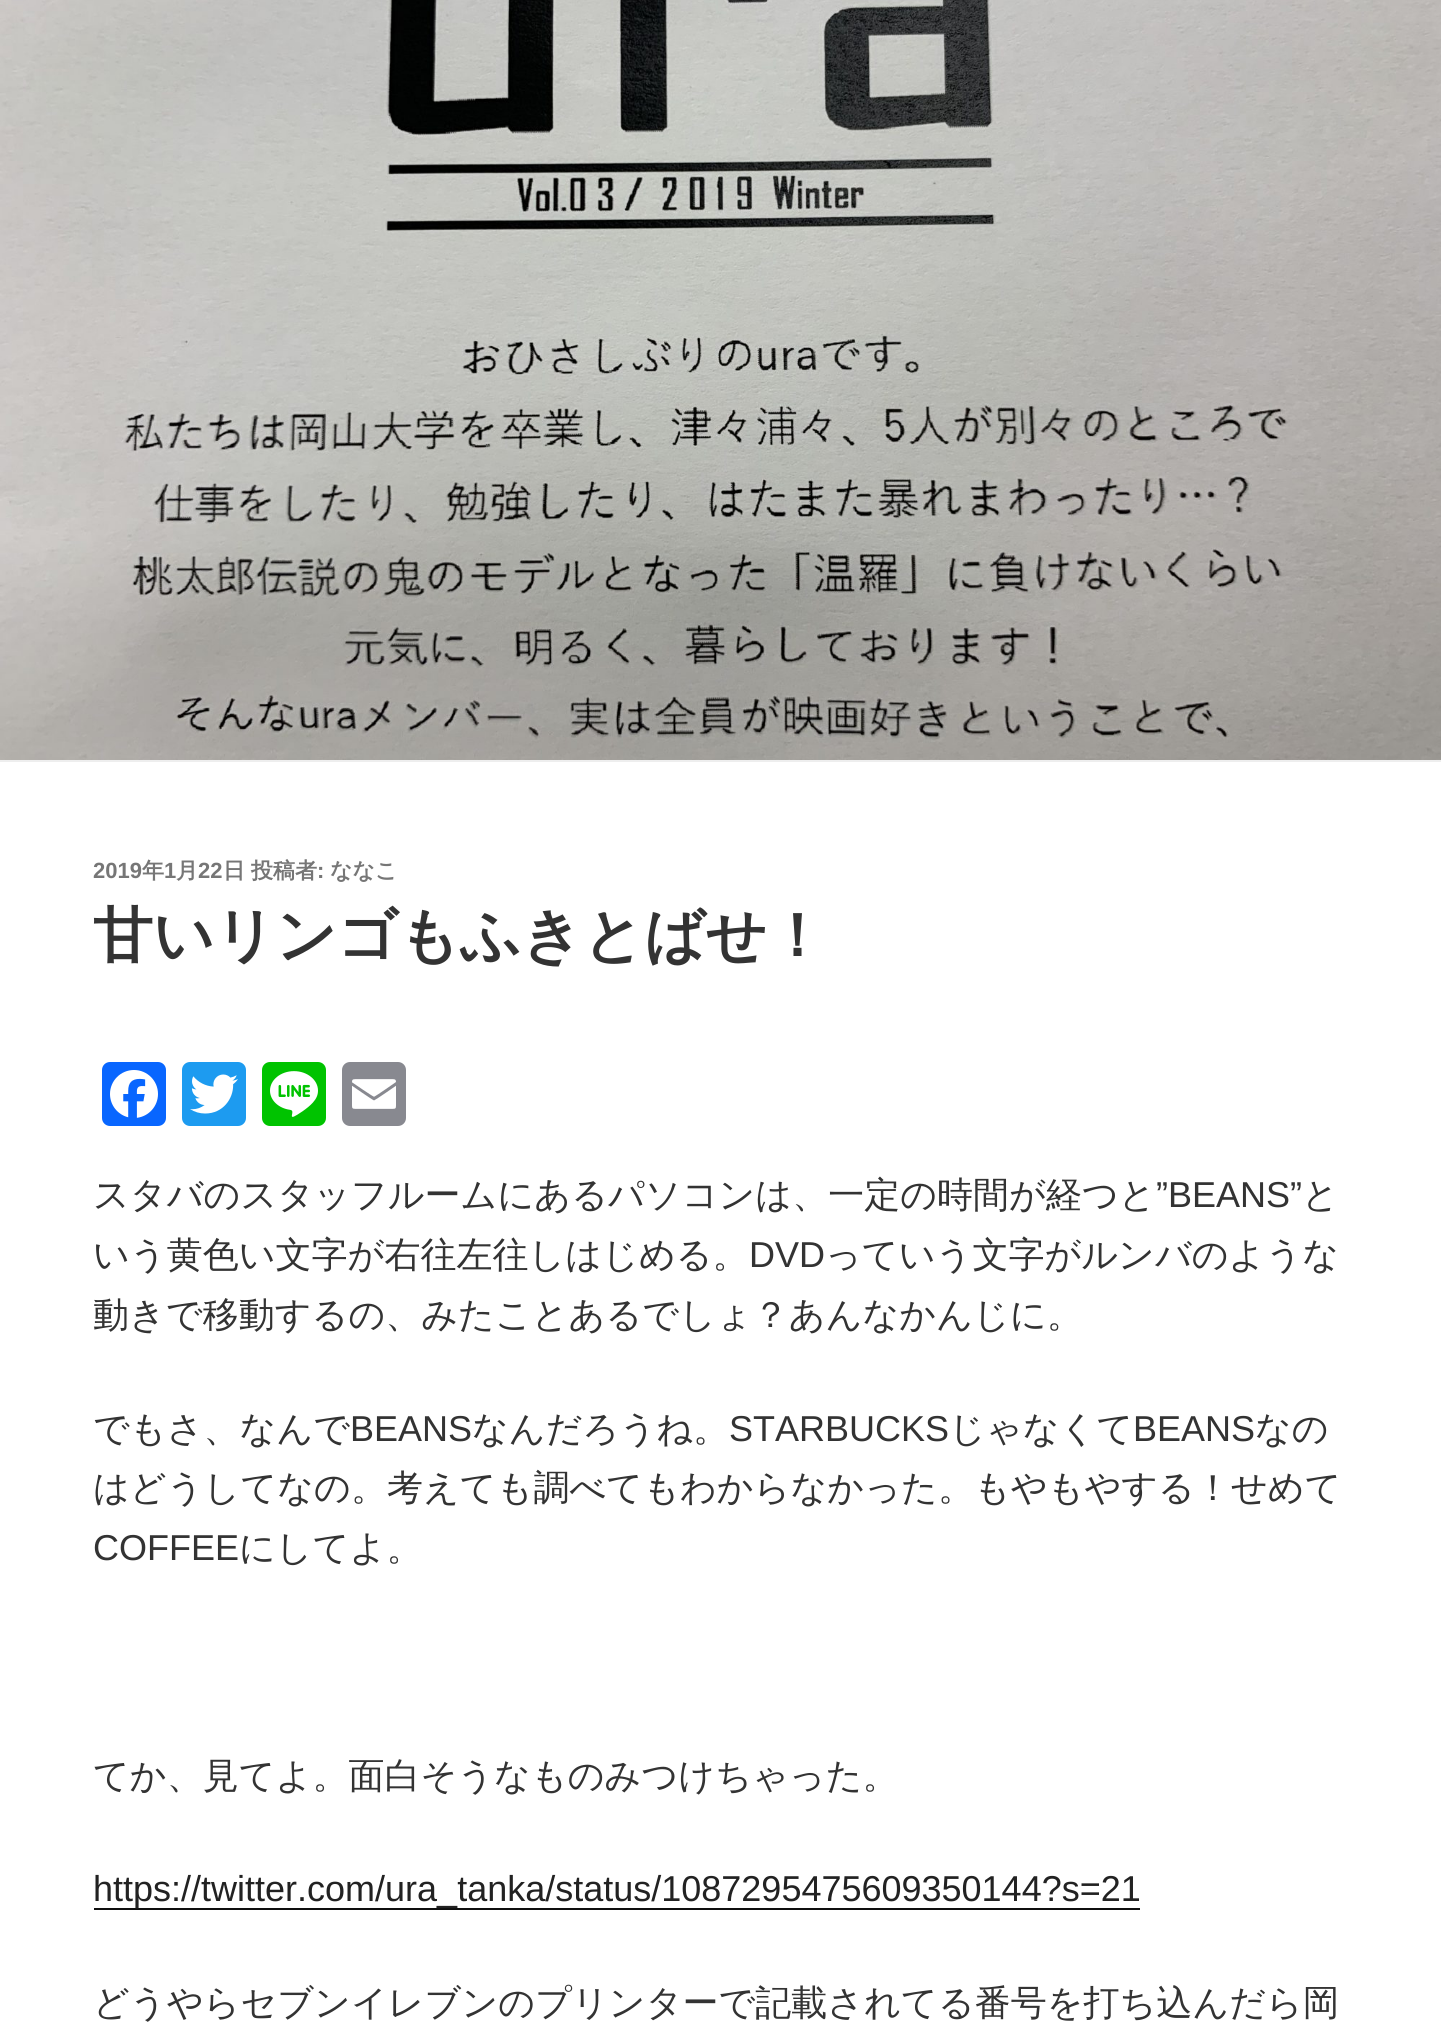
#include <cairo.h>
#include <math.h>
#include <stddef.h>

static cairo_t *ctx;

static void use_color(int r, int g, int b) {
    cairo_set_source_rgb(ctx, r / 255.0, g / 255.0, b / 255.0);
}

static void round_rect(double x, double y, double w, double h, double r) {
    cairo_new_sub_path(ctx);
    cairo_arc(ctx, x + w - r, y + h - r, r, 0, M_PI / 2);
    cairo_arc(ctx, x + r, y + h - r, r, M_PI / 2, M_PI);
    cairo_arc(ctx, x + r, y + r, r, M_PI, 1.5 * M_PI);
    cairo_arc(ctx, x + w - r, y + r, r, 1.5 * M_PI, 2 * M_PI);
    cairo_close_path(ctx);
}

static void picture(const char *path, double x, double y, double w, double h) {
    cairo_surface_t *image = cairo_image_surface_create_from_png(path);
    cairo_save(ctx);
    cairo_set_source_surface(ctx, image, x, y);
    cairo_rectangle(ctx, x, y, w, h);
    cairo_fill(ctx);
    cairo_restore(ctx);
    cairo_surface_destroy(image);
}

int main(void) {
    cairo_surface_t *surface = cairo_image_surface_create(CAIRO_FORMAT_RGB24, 1441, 2044);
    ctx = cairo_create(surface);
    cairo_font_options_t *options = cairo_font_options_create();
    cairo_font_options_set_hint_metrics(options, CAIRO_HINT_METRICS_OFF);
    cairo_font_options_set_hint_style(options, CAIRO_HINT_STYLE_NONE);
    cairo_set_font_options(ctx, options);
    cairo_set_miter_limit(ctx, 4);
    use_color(255, 255, 255);
    cairo_paint(ctx);
    use_color(238, 238, 238);
    cairo_rectangle(ctx, 0, 760, 1441, 2);
    cairo_fill(ctx);
    picture("img1.png", 0, 0, 1441, 760);
    cairo_select_font_face(ctx, "Liberation Sans", CAIRO_FONT_SLANT_NORMAL, CAIRO_FONT_WEIGHT_BOLD);
    cairo_set_font_size(ctx, 22);
    use_color(118, 118, 118);
    cairo_move_to(ctx, 93, 878);
    cairo_show_text(ctx, "2019");
    cairo_select_font_face(ctx, "WenQuanYi Zen Hei", CAIRO_FONT_SLANT_NORMAL, CAIRO_FONT_WEIGHT_BOLD);
    cairo_move_to(ctx, 142, 878);
    cairo_show_text(ctx, "年");
    cairo_select_font_face(ctx, "Liberation Sans", CAIRO_FONT_SLANT_NORMAL, CAIRO_FONT_WEIGHT_BOLD);
    cairo_move_to(ctx, 164, 878);
    cairo_show_text(ctx, "1");
    cairo_select_font_face(ctx, "WenQuanYi Zen Hei", CAIRO_FONT_SLANT_NORMAL, CAIRO_FONT_WEIGHT_BOLD);
    cairo_move_to(ctx, 176, 878);
    cairo_show_text(ctx, "月");
    cairo_select_font_face(ctx, "Liberation Sans", CAIRO_FONT_SLANT_NORMAL, CAIRO_FONT_WEIGHT_BOLD);
    cairo_move_to(ctx, 198, 878);
    cairo_show_text(ctx, "22");
    cairo_select_font_face(ctx, "WenQuanYi Zen Hei", CAIRO_FONT_SLANT_NORMAL, CAIRO_FONT_WEIGHT_BOLD);
    cairo_move_to(ctx, 223, 878);
    cairo_show_text(ctx, "日");
    cairo_move_to(ctx, 251, 878);
    cairo_show_text(ctx, "投稿者");
    cairo_select_font_face(ctx, "Liberation Sans", CAIRO_FONT_SLANT_NORMAL, CAIRO_FONT_WEIGHT_BOLD);
    cairo_move_to(ctx, 317, 878);
    cairo_show_text(ctx, ":");
    cairo_select_font_face(ctx, "WenQuanYi Zen Hei", CAIRO_FONT_SLANT_NORMAL, CAIRO_FONT_WEIGHT_BOLD);
    cairo_move_to(ctx, 330, 878);
    cairo_show_text(ctx, "ななこ");
    cairo_set_font_size(ctx, 60);
    use_color(51, 51, 51);
    cairo_move_to(ctx, 93, 956);
    cairo_show_text(ctx, "甘いリンゴもふきとばせ！");
    use_color(8, 102, 255);
    round_rect(102, 1062, 64, 64, 8);
    cairo_fill(ctx);
    picture("img2.png", 110, 1070, 48, 48);
    use_color(29, 155, 240);
    round_rect(182, 1062, 64, 64, 8);
    cairo_fill(ctx);
    picture("img3.png", 190, 1074, 48, 40);
    use_color(0, 195, 0);
    round_rect(262, 1062, 64, 64, 8);
    cairo_fill(ctx);
    picture("img4.png", 270, 1071, 48, 46);
    use_color(136, 137, 144);
    round_rect(342, 1062, 64, 64, 8);
    cairo_fill(ctx);
    picture("img5.png", 352, 1079, 44, 30);
    cairo_select_font_face(ctx, "WenQuanYi Zen Hei Medium", CAIRO_FONT_SLANT_NORMAL, CAIRO_FONT_WEIGHT_NORMAL);
    cairo_set_font_size(ctx, 36);
    use_color(51, 51, 51);
    cairo_move_to(ctx, 93, 1207);
    cairo_show_text(ctx, "スタバのスタッフルームにあるパソコンは、一定の時間が経つと");
    cairo_select_font_face(ctx, "Liberation Sans", CAIRO_FONT_SLANT_NORMAL, CAIRO_FONT_WEIGHT_NORMAL);
    cairo_move_to(ctx, 1156, 1207);
    cairo_show_text(ctx, "”BEANS”");
    cairo_select_font_face(ctx, "WenQuanYi Zen Hei Medium", CAIRO_FONT_SLANT_NORMAL, CAIRO_FONT_WEIGHT_NORMAL);
    cairo_move_to(ctx, 1302, 1207);
    cairo_show_text(ctx, "と");
    cairo_move_to(ctx, 93, 1267);
    cairo_show_text(ctx, "いう黄色い文字が右往左往しはじめる。");
    cairo_select_font_face(ctx, "Liberation Sans", CAIRO_FONT_SLANT_NORMAL, CAIRO_FONT_WEIGHT_NORMAL);
    cairo_move_to(ctx, 749, 1267);
    cairo_show_text(ctx, "DVD");
    cairo_select_font_face(ctx, "WenQuanYi Zen Hei Medium", CAIRO_FONT_SLANT_NORMAL, CAIRO_FONT_WEIGHT_NORMAL);
    cairo_move_to(ctx, 825, 1267);
    cairo_show_text(ctx, "っていう文字がルンバのような");
    cairo_move_to(ctx, 93, 1327);
    cairo_show_text(ctx, "動きで移動するの、みたことあるでしょ？あんなかんじに。");
    cairo_move_to(ctx, 93, 1441);
    cairo_show_text(ctx, "でもさ、なんで");
    cairo_select_font_face(ctx, "Liberation Sans", CAIRO_FONT_SLANT_NORMAL, CAIRO_FONT_WEIGHT_NORMAL);
    cairo_move_to(ctx, 350, 1441);
    cairo_show_text(ctx, "BEANS");
    cairo_select_font_face(ctx, "WenQuanYi Zen Hei Medium", CAIRO_FONT_SLANT_NORMAL, CAIRO_FONT_WEIGHT_NORMAL);
    cairo_move_to(ctx, 472, 1441);
    cairo_show_text(ctx, "なんだろうね。");
    cairo_select_font_face(ctx, "Liberation Sans", CAIRO_FONT_SLANT_NORMAL, CAIRO_FONT_WEIGHT_NORMAL);
    cairo_move_to(ctx, 729, 1441);
    cairo_show_text(ctx, "STARBUCKS");
    cairo_select_font_face(ctx, "WenQuanYi Zen Hei Medium", CAIRO_FONT_SLANT_NORMAL, CAIRO_FONT_WEIGHT_NORMAL);
    cairo_move_to(ctx, 949, 1441);
    cairo_show_text(ctx, "じゃなくて");
    cairo_select_font_face(ctx, "Liberation Sans", CAIRO_FONT_SLANT_NORMAL, CAIRO_FONT_WEIGHT_NORMAL);
    cairo_move_to(ctx, 1133, 1441);
    cairo_show_text(ctx, "BEANS");
    cairo_select_font_face(ctx, "WenQuanYi Zen Hei Medium", CAIRO_FONT_SLANT_NORMAL, CAIRO_FONT_WEIGHT_NORMAL);
    cairo_move_to(ctx, 1255, 1441);
    cairo_show_text(ctx, "なの");
    cairo_move_to(ctx, 93, 1500);
    cairo_show_text(ctx, "はどうしてなの。考えても調べてもわからなかった。もやもやする！せめて");
    cairo_select_font_face(ctx, "Liberation Sans", CAIRO_FONT_SLANT_NORMAL, CAIRO_FONT_WEIGHT_NORMAL);
    cairo_move_to(ctx, 93, 1560);
    cairo_show_text(ctx, "COFFEE");
    cairo_select_font_face(ctx, "WenQuanYi Zen Hei Medium", CAIRO_FONT_SLANT_NORMAL, CAIRO_FONT_WEIGHT_NORMAL);
    cairo_move_to(ctx, 239, 1560);
    cairo_show_text(ctx, "にしてよ。");
    cairo_move_to(ctx, 93, 1788);
    cairo_show_text(ctx, "てか、見てよ。面白そうなものみつけちゃった。");
    use_color(15, 15, 15);
    cairo_rectangle(ctx, 94, 1908, 1046, 2);
    cairo_fill(ctx);
    cairo_select_font_face(ctx, "Liberation Sans", CAIRO_FONT_SLANT_NORMAL, CAIRO_FONT_WEIGHT_NORMAL);
    use_color(34, 34, 34);
    cairo_move_to(ctx, 93, 1901);
    cairo_show_text(ctx, "https://twitter.com/ura_tanka/status/1087295475609350144?s=21");
    cairo_select_font_face(ctx, "WenQuanYi Zen Hei Medium", CAIRO_FONT_SLANT_NORMAL, CAIRO_FONT_WEIGHT_NORMAL);
    use_color(51, 51, 51);
    cairo_move_to(ctx, 93, 2015);
    cairo_show_text(ctx, "どうやらセブンイレブンのプリンターで記載されてる番号を打ち込んだら岡");
    cairo_surface_write_to_png(surface, "result.png");
    cairo_font_options_destroy(options);
    cairo_destroy(ctx);
    cairo_surface_destroy(surface);
    return 0;
}
